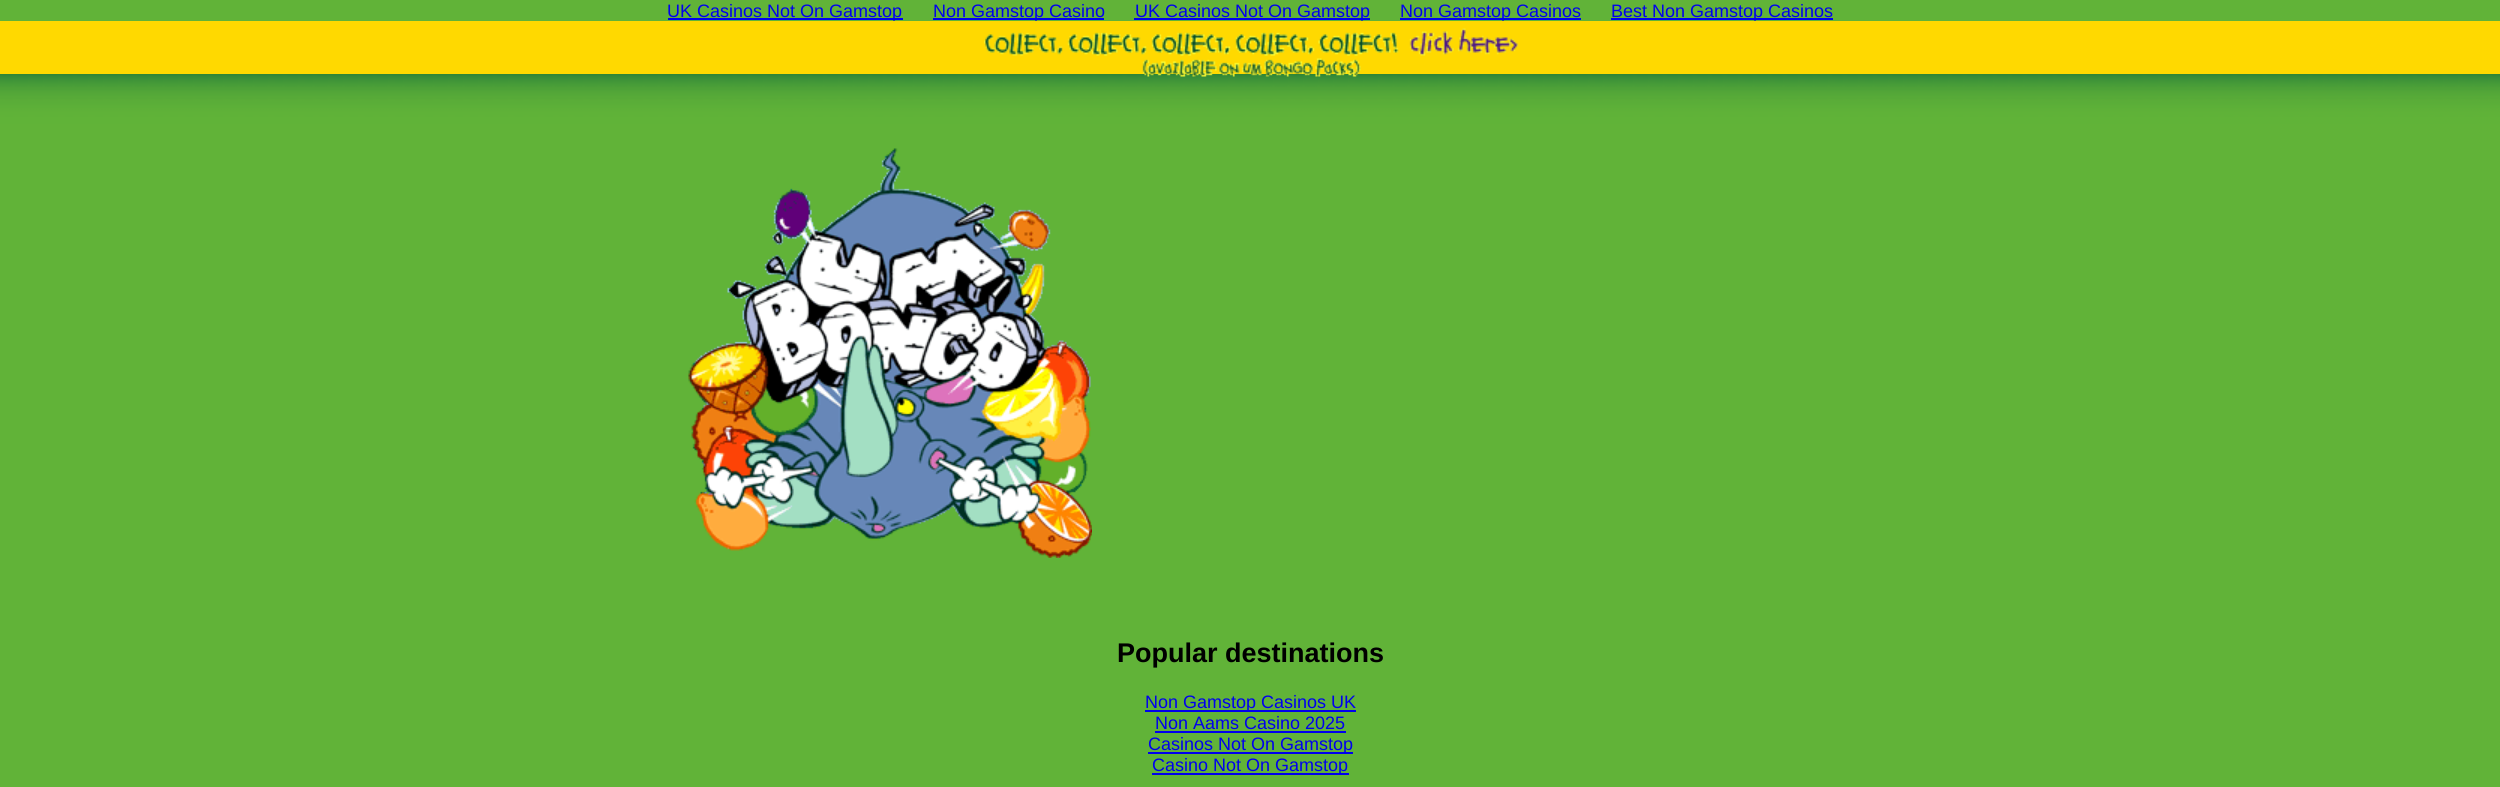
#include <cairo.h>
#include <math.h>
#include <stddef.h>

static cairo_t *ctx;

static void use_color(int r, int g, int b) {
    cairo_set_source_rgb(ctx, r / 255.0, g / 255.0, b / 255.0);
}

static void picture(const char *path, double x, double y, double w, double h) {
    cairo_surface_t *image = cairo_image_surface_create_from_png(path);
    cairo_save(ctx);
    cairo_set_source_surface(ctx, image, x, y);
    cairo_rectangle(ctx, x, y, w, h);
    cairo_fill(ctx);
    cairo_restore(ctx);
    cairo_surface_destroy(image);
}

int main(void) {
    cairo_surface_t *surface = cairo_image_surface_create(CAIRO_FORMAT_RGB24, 2500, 787);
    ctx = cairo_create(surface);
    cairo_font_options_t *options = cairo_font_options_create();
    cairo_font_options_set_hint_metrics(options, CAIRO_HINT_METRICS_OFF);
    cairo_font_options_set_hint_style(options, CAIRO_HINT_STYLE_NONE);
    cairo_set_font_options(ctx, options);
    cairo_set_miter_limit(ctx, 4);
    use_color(255, 255, 255);
    cairo_paint(ctx);
    picture("img1.png", 0, 0, 2500, 787);
    use_color(0, 0, 238);
    cairo_rectangle(ctx, 668, 18, 235, 2);
    cairo_fill(ctx);
    cairo_select_font_face(ctx, "Liberation Sans", CAIRO_FONT_SLANT_NORMAL, CAIRO_FONT_WEIGHT_NORMAL);
    cairo_set_font_size(ctx, 18);
    cairo_move_to(ctx, 667, 17);
    cairo_show_text(ctx, "UK Casinos Not On Gamstop");
    cairo_rectangle(ctx, 933, 18, 171, 2);
    cairo_fill(ctx);
    cairo_move_to(ctx, 933, 17);
    cairo_show_text(ctx, "Non Gamstop Casino");
    cairo_rectangle(ctx, 1134, 18, 236, 2);
    cairo_fill(ctx);
    cairo_move_to(ctx, 1135, 17);
    cairo_show_text(ctx, "UK Casinos Not On Gamstop");
    cairo_rectangle(ctx, 1400, 18, 181, 2);
    cairo_fill(ctx);
    cairo_move_to(ctx, 1400, 17);
    cairo_show_text(ctx, "Non Gamstop Casinos");
    cairo_rectangle(ctx, 1611, 18, 222, 2);
    cairo_fill(ctx);
    cairo_move_to(ctx, 1611, 17);
    cairo_show_text(ctx, "Best Non Gamstop Casinos");
    use_color(255, 217, 0);
    cairo_rectangle(ctx, 0, 21, 2500, 53);
    cairo_fill(ctx);
    picture("img2.png", 984, 28, 534, 49);
    picture("img3.png", 688, 148, 404, 410);
    cairo_select_font_face(ctx, "Liberation Sans", CAIRO_FONT_SLANT_NORMAL, CAIRO_FONT_WEIGHT_BOLD);
    cairo_set_font_size(ctx, 27);
    use_color(0, 0, 0);
    cairo_move_to(ctx, 1117, 662);
    cairo_show_text(ctx, "Popular destinations");
    use_color(0, 0, 238);
    cairo_rectangle(ctx, 1145, 710, 211, 2);
    cairo_fill(ctx);
    cairo_select_font_face(ctx, "Liberation Sans", CAIRO_FONT_SLANT_NORMAL, CAIRO_FONT_WEIGHT_NORMAL);
    cairo_set_font_size(ctx, 18);
    cairo_move_to(ctx, 1145, 708);
    cairo_show_text(ctx, "Non Gamstop Casinos UK");
    cairo_move_to(ctx, 1155, 729);
    cairo_show_text(ctx, "Non Aams Casino 2025");
    cairo_rectangle(ctx, 1155, 731, 191, 2);
    cairo_fill(ctx);
    cairo_rectangle(ctx, 1148, 752, 205, 2);
    cairo_fill(ctx);
    cairo_move_to(ctx, 1148, 750);
    cairo_show_text(ctx, "Casinos Not On Gamstop");
    cairo_rectangle(ctx, 1152, 773, 197, 2);
    cairo_fill(ctx);
    cairo_move_to(ctx, 1152, 771);
    cairo_show_text(ctx, "Casino Not On Gamstop");
    cairo_surface_write_to_png(surface, "result.png");
    cairo_font_options_destroy(options);
    cairo_destroy(ctx);
    cairo_surface_destroy(surface);
    return 0;
}
